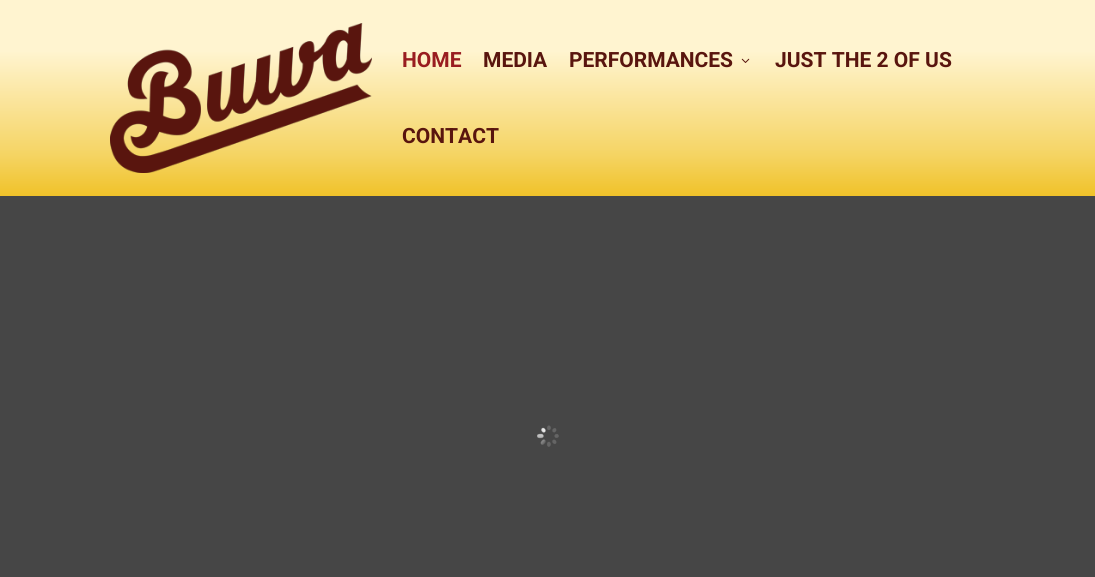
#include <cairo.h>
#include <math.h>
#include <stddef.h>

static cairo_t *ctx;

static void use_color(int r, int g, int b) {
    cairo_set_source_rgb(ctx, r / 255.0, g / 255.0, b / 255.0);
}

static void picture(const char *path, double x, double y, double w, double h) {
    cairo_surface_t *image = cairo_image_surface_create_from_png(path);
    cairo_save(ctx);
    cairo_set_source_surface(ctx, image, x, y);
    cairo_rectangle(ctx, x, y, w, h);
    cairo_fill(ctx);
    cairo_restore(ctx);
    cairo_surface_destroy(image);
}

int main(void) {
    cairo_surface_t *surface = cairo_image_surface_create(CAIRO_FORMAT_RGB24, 1095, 577);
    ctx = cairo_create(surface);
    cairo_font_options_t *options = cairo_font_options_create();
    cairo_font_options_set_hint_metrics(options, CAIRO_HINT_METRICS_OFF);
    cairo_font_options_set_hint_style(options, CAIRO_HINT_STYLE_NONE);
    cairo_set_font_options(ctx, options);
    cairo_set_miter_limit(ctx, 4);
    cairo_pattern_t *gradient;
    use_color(70, 70, 70);
    cairo_paint(ctx);
    gradient = cairo_pattern_create_linear(548, 0, 548, 196);
    cairo_pattern_add_color_stop_rgba(gradient, 0.26, 1, 0.957, 0.816, 1);
    cairo_pattern_add_color_stop_rgba(gradient, 0.79, 0.961, 0.831, 0.388, 1);
    cairo_pattern_add_color_stop_rgba(gradient, 1, 0.941, 0.761, 0.161, 1);
    cairo_set_source(ctx, gradient);
    cairo_pattern_destroy(gradient);
    cairo_rectangle(ctx, 0, 0, 1095, 196);
    cairo_fill(ctx);
    picture("img1.png", 110, 23, 262, 150);
    cairo_select_font_face(ctx, "Roboto", CAIRO_FONT_SLANT_NORMAL, CAIRO_FONT_WEIGHT_BOLD);
    cairo_set_font_size(ctx, 21);
    use_color(153, 29, 32);
    cairo_move_to(ctx, 402, 67);
    cairo_show_text(ctx, "HOME");
    use_color(89, 21, 14);
    cairo_move_to(ctx, 483, 67);
    cairo_show_text(ctx, "MEDIA");
    cairo_move_to(ctx, 569, 67);
    cairo_show_text(ctx, "PERFORMANCES");
    picture("img2.png", 741, 58, 9, 5);
    cairo_move_to(ctx, 775, 67);
    cairo_show_text(ctx, "JUST THE 2 OF US");
    cairo_move_to(ctx, 402, 143);
    cairo_show_text(ctx, "CONTACT");
    picture("img3.png", 537, 425, 22, 22);
    cairo_surface_write_to_png(surface, "result.png");
    cairo_font_options_destroy(options);
    cairo_destroy(ctx);
    cairo_surface_destroy(surface);
    return 0;
}
